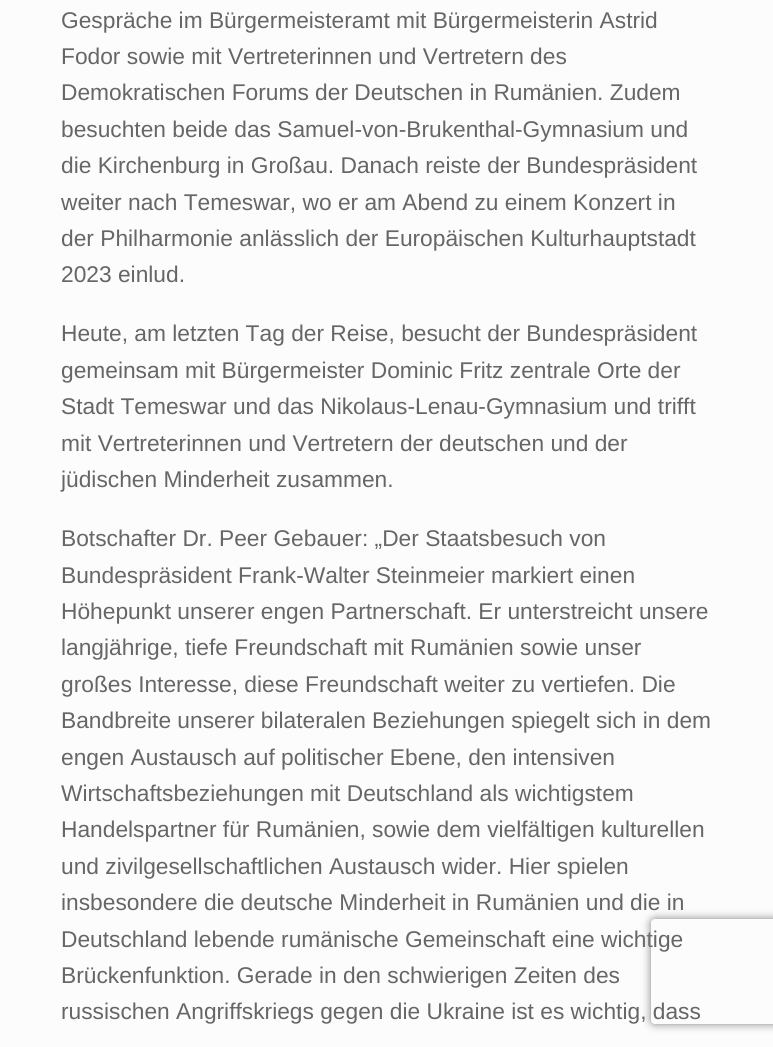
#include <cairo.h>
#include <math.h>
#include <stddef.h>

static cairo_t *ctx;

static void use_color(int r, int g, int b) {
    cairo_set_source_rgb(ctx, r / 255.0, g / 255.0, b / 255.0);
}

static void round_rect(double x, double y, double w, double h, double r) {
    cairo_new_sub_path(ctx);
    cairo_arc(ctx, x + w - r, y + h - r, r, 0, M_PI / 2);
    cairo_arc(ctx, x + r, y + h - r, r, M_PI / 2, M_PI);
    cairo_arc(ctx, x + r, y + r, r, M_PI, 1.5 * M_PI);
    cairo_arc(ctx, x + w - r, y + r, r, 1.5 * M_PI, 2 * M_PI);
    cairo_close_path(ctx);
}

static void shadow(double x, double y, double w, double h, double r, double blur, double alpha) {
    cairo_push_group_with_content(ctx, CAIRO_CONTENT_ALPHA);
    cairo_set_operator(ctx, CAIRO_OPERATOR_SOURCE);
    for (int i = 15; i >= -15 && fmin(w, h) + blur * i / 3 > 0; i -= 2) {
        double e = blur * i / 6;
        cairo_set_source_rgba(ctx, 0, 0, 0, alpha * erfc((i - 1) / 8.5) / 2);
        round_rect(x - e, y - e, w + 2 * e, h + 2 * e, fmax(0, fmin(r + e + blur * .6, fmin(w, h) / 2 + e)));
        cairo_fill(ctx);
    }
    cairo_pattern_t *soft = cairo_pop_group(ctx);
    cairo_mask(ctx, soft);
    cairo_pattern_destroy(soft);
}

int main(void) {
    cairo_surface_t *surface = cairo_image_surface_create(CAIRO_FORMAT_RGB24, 773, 1047);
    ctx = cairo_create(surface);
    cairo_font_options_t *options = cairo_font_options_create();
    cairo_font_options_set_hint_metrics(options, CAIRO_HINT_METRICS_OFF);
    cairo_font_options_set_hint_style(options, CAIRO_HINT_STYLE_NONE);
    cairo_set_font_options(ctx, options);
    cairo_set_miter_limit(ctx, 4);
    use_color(252, 252, 252);
    cairo_paint(ctx);
    cairo_select_font_face(ctx, "Liberation Sans", CAIRO_FONT_SLANT_NORMAL, CAIRO_FONT_WEIGHT_NORMAL);
    cairo_set_font_size(ctx, 22.75);
    use_color(102, 102, 102);
    cairo_move_to(ctx, 61, 28);
    cairo_show_text(ctx, "Gespräche im Bürgermeisteramt mit Bürgermeisterin Astrid");
    cairo_move_to(ctx, 61, 64);
    cairo_show_text(ctx, "Fodor sowie mit Vertreterinnen und Vertretern des");
    cairo_move_to(ctx, 61, 100);
    cairo_show_text(ctx, "Demokratischen Forums der Deutschen in Rumänien. Zudem");
    cairo_move_to(ctx, 61, 137);
    cairo_show_text(ctx, "besuchten beide das Samuel-von-Brukenthal-Gymnasium und");
    cairo_move_to(ctx, 61, 173);
    cairo_show_text(ctx, "die Kirchenburg in Großau. Danach reiste der Bundespräsident");
    cairo_move_to(ctx, 61, 210);
    cairo_show_text(ctx, "weiter nach Temeswar, wo er am Abend zu einem Konzert in");
    cairo_move_to(ctx, 61, 246);
    cairo_show_text(ctx, "der Philharmonie anlässlich der Europäischen Kulturhauptstadt");
    cairo_move_to(ctx, 61, 282);
    cairo_show_text(ctx, "2023 einlud.");
    cairo_move_to(ctx, 61, 341);
    cairo_show_text(ctx, "Heute, am letzten Tag der Reise, besucht der Bundespräsident");
    cairo_move_to(ctx, 61, 378);
    cairo_show_text(ctx, "gemeinsam mit Bürgermeister Dominic Fritz zentrale Orte der");
    cairo_move_to(ctx, 61, 414);
    cairo_show_text(ctx, "Stadt Temeswar und das Nikolaus-Lenau-Gymnasium und trifft");
    cairo_move_to(ctx, 61, 451);
    cairo_show_text(ctx, "mit Vertreterinnen und Vertretern der deutschen und der");
    cairo_move_to(ctx, 61, 487);
    cairo_show_text(ctx, "jüdischen Minderheit zusammen.");
    cairo_move_to(ctx, 61, 546);
    cairo_show_text(ctx, "Botschafter Dr. Peer Gebauer: „Der Staatsbesuch von");
    cairo_move_to(ctx, 61, 583);
    cairo_show_text(ctx, "Bundespräsident Frank-Walter Steinmeier markiert einen");
    cairo_move_to(ctx, 61, 619);
    cairo_show_text(ctx, "Höhepunkt unserer engen Partnerschaft. Er unterstreicht unsere");
    cairo_move_to(ctx, 61, 655);
    cairo_show_text(ctx, "langjährige, tiefe Freundschaft mit Rumänien sowie unser");
    cairo_move_to(ctx, 61, 692);
    cairo_show_text(ctx, "großes Interesse, diese Freundschaft weiter zu vertiefen. Die");
    cairo_move_to(ctx, 61, 728);
    cairo_show_text(ctx, "Bandbreite unserer bilateralen Beziehungen spiegelt sich in dem");
    cairo_move_to(ctx, 61, 765);
    cairo_show_text(ctx, "engen Austausch auf politischer Ebene, den intensiven");
    cairo_move_to(ctx, 61, 801);
    cairo_show_text(ctx, "Wirtschaftsbeziehungen mit Deutschland als wichtigstem");
    cairo_move_to(ctx, 61, 837);
    cairo_show_text(ctx, "Handelspartner für Rumänien, sowie dem vielfältigen kulturellen");
    cairo_move_to(ctx, 61, 874);
    cairo_show_text(ctx, "und zivilgesellschaftlichen Austausch wider. Hier spielen");
    cairo_move_to(ctx, 61, 910);
    cairo_show_text(ctx, "insbesondere die deutsche Minderheit in Rumänien und die in");
    cairo_move_to(ctx, 61, 947);
    cairo_show_text(ctx, "Deutschland lebende rumänische Gemeinschaft eine wichtige");
    cairo_move_to(ctx, 61, 983);
    cairo_show_text(ctx, "Brückenfunktion. Gerade in den schwierigen Zeiten des");
    cairo_move_to(ctx, 61, 1019);
    cairo_show_text(ctx, "russischen Angriffskriegs gegen die Ukraine ist es wichtig, dass");
    cairo_save(ctx);
    cairo_set_fill_rule(ctx, CAIRO_FILL_RULE_EVEN_ODD);
    cairo_new_path(ctx);
    cairo_move_to(ctx, 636, 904);
    cairo_line_to(ctx, 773, 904);
    cairo_line_to(ctx, 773, 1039);
    cairo_line_to(ctx, 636, 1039);
    cairo_close_path(ctx);
    cairo_move_to(ctx, 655, 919);
    cairo_line_to(ctx, 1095, 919);
    cairo_curve_to(ctx, 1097, 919, 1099, 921, 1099, 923);
    cairo_line_to(ctx, 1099, 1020);
    cairo_curve_to(ctx, 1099, 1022, 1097, 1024, 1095, 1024);
    cairo_line_to(ctx, 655, 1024);
    cairo_curve_to(ctx, 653, 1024, 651, 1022, 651, 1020);
    cairo_line_to(ctx, 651, 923);
    cairo_curve_to(ctx, 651, 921, 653, 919, 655, 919);
    cairo_close_path(ctx);
    cairo_clip(ctx);
    use_color(128, 128, 128);
    shadow(651, 919, 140, 105, 4, 4.5, 1);
    cairo_restore(ctx);
    cairo_surface_write_to_png(surface, "result.png");
    cairo_font_options_destroy(options);
    cairo_destroy(ctx);
    cairo_surface_destroy(surface);
    return 0;
}
